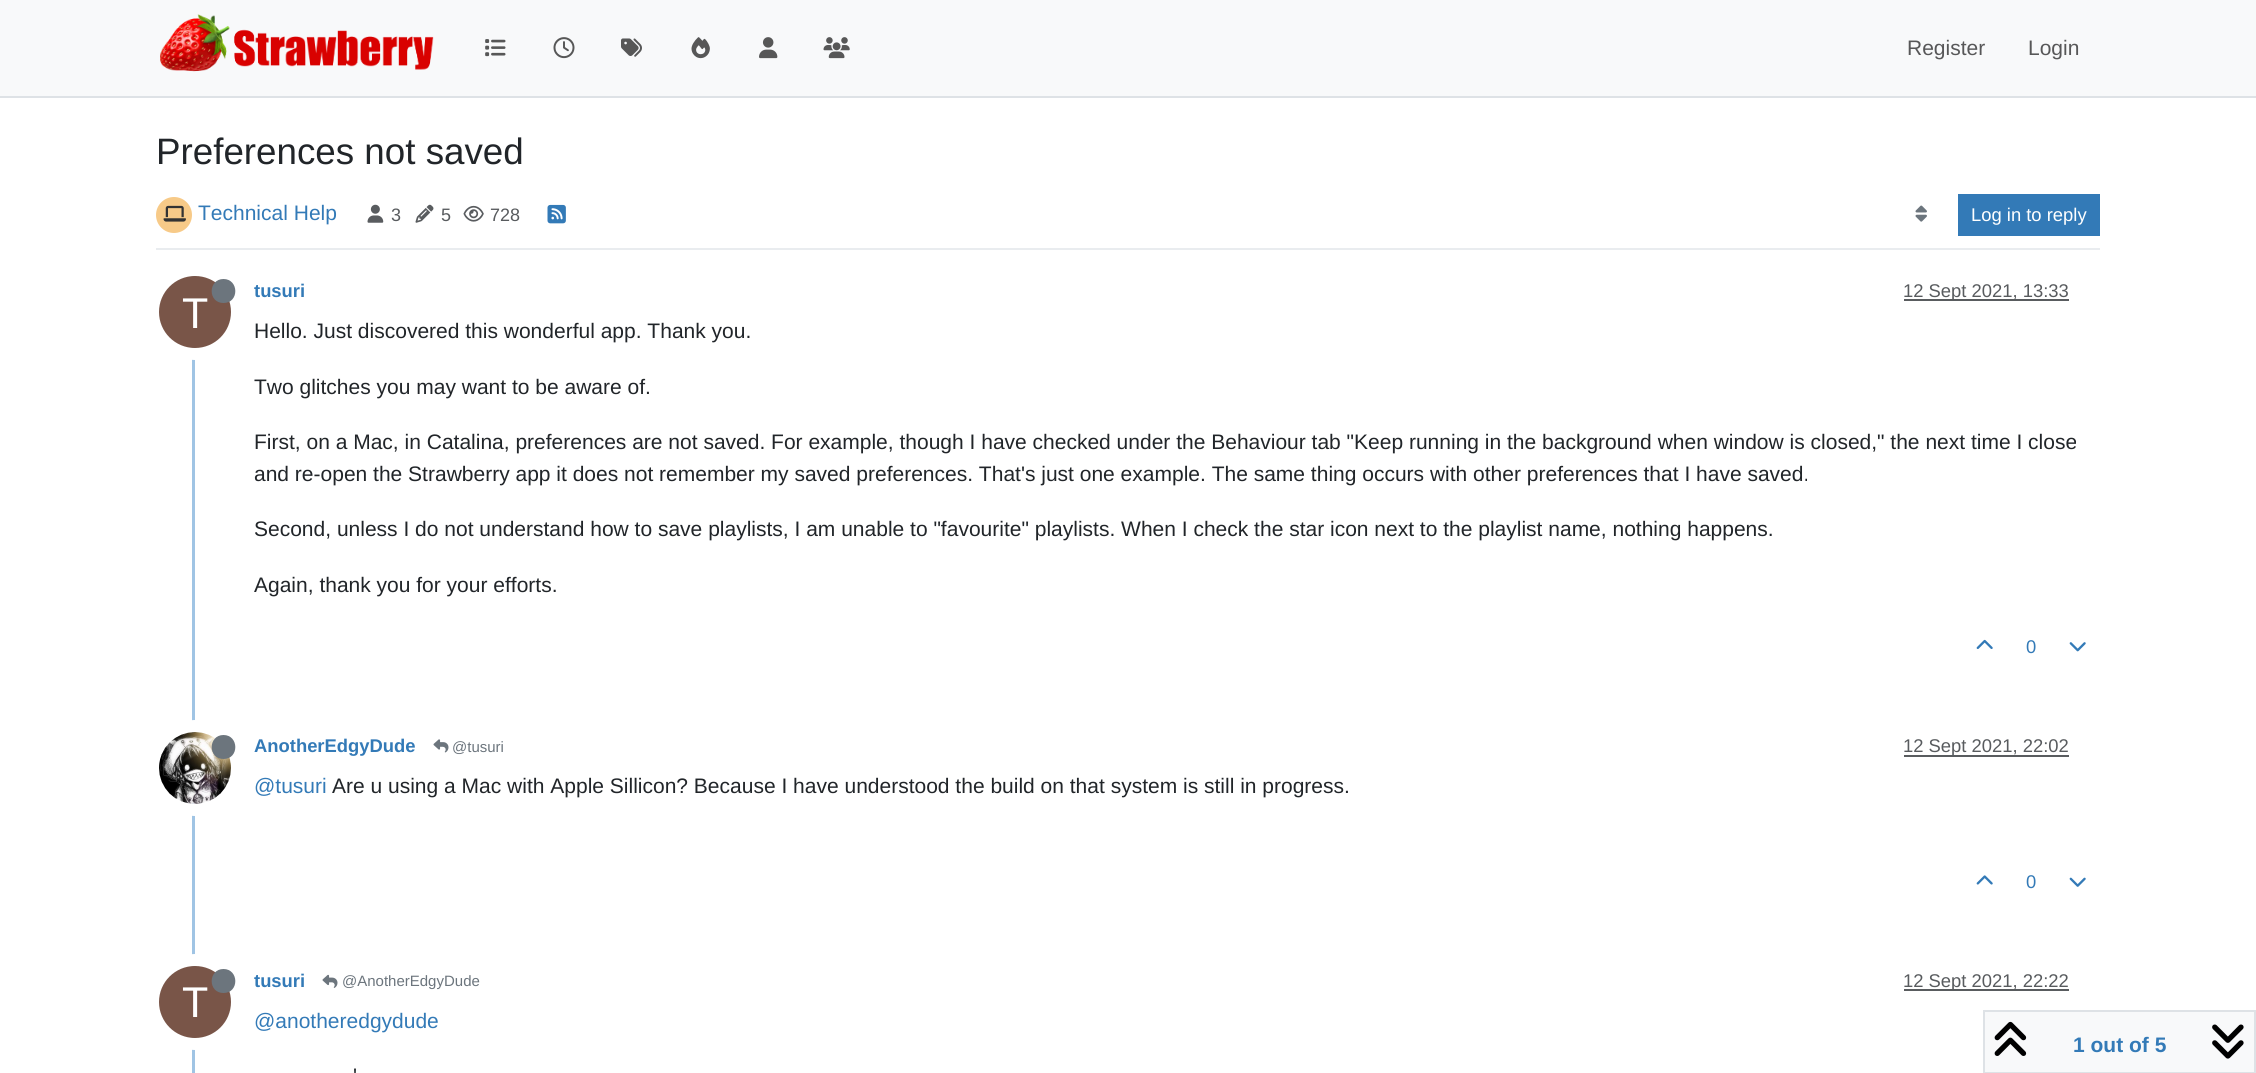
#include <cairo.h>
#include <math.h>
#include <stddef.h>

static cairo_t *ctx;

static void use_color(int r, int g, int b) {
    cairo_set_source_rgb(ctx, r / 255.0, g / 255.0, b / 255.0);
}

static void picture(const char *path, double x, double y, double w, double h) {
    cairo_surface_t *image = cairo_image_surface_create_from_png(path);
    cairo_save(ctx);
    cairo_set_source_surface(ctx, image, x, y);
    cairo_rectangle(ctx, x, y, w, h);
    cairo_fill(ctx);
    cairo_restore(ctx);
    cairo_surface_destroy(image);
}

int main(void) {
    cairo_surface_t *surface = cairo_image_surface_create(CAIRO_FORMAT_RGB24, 2256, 1073);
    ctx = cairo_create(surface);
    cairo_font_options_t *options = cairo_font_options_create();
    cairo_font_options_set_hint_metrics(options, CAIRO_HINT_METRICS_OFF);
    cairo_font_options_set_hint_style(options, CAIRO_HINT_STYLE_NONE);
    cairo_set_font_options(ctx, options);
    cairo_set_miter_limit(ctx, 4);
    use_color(255, 255, 255);
    cairo_paint(ctx);
    use_color(248, 249, 250);
    cairo_rectangle(ctx, 0, 0, 2256, 96);
    cairo_fill(ctx);
    use_color(222, 226, 230);
    cairo_rectangle(ctx, 0, 96, 2256, 2);
    cairo_fill(ctx);
    picture("img1.png", 160, 14, 274, 58);
    picture("img2.png", 485, 39, 21, 18);
    picture("img3.png", 553, 37, 22, 22);
    picture("img4.png", 621, 38, 21, 19);
    picture("img5.png", 691, 37, 19, 22);
    picture("img6.png", 759, 37, 19, 22);
    picture("img7.png", 823, 37, 27, 22);
    cairo_select_font_face(ctx, "Liberation Sans", CAIRO_FONT_SLANT_NORMAL, CAIRO_FONT_WEIGHT_NORMAL);
    cairo_set_font_size(ctx, 21);
    use_color(87, 87, 88);
    cairo_move_to(ctx, 1907, 55);
    cairo_show_text(ctx, "Register");
    cairo_move_to(ctx, 2028, 55);
    cairo_show_text(ctx, "Login");
    cairo_set_font_size(ctx, 36.75);
    use_color(33, 37, 41);
    cairo_move_to(ctx, 156, 164);
    cairo_show_text(ctx, "Preferences not saved");
    use_color(233, 236, 239);
    cairo_rectangle(ctx, 156, 248, 1944, 2);
    cairo_fill(ctx);
    use_color(247, 202, 136);
    cairo_arc(ctx, 174, 215, 18, 0, 2 * M_PI);
    cairo_fill(ctx);
    picture("img8.png", 163, 205, 23, 17);
    cairo_set_font_size(ctx, 21);
    use_color(51, 122, 183);
    cairo_move_to(ctx, 198, 220);
    cairo_show_text(ctx, "Technical Help");
    picture("img9.png", 367, 204, 17, 19);
    cairo_set_font_size(ctx, 18);
    use_color(88, 91, 94);
    cairo_move_to(ctx, 391, 221);
    cairo_show_text(ctx, "3");
    picture("img10.png", 415, 204, 19, 19);
    cairo_move_to(ctx, 441, 221);
    cairo_show_text(ctx, "5");
    picture("img11.png", 463, 205, 21, 17);
    cairo_move_to(ctx, 490, 221);
    cairo_show_text(ctx, "728");
    picture("img12.png", 547, 204, 19, 20);
    picture("img13.png", 1915, 205, 12, 17);
    use_color(51, 122, 183);
    cairo_rectangle(ctx, 1958, 194, 142, 42);
    cairo_fill(ctx);
    cairo_set_font_size(ctx, 18.4);
    use_color(255, 255, 255);
    cairo_move_to(ctx, 1971, 221);
    cairo_show_text(ctx, "Log in to reply");
    use_color(160, 196, 228);
    cairo_rectangle(ctx, 192, 273, 3, 800);
    cairo_fill(ctx);
    cairo_select_font_face(ctx, "Liberation Sans", CAIRO_FONT_SLANT_NORMAL, CAIRO_FONT_WEIGHT_BOLD);
    use_color(51, 122, 183);
    cairo_move_to(ctx, 254, 297);
    cairo_show_text(ctx, "tusuri");
    use_color(89, 92, 95);
    cairo_rectangle(ctx, 1904, 299, 165, 2);
    cairo_fill(ctx);
    cairo_select_font_face(ctx, "Liberation Sans", CAIRO_FONT_SLANT_NORMAL, CAIRO_FONT_WEIGHT_NORMAL);
    use_color(88, 91, 94);
    cairo_move_to(ctx, 1903, 297);
    cairo_show_text(ctx, "12 Sept 2021, 13:33");
    cairo_new_path(ctx);
    cairo_arc(ctx, 195, 312, 42, 0, 2 * M_PI);
    use_color(255, 255, 255);
    cairo_set_line_width(ctx, 12);
    cairo_stroke(ctx);
    use_color(121, 85, 72);
    cairo_arc(ctx, 195, 312, 36, 0, 2 * M_PI);
    cairo_fill(ctx);
    use_color(108, 117, 125);
    cairo_new_path(ctx);
    cairo_move_to(ctx, 223.5, 303);
    cairo_curve_to(ctx, 239.5, 303, 239, 279, 223.5, 279);
    cairo_curve_to(ctx, 208, 279, 207.5, 303, 223.5, 303);
    cairo_close_path(ctx);
    cairo_fill(ctx);
    cairo_set_font_size(ctx, 43);
    use_color(255, 255, 255);
    cairo_move_to(ctx, 182, 328);
    cairo_show_text(ctx, "T");
    cairo_set_font_size(ctx, 21);
    use_color(33, 37, 41);
    cairo_move_to(ctx, 254, 338);
    cairo_show_text(ctx, "Hello. Just discovered this wonderful app. Thank you.");
    cairo_move_to(ctx, 254, 394);
    cairo_show_text(ctx, "Two glitches you may want to be aware of.");
    cairo_move_to(ctx, 254, 449);
    cairo_show_text(ctx, "First, on a Mac, in Catalina, preferences are not saved. For example, though I have checked under the Behaviour tab \"Keep running in the background when window is closed,\" the next time I close");
    cairo_move_to(ctx, 254, 481);
    cairo_show_text(ctx, "and re-open the Strawberry app it does not remember my saved preferences. That's just one example. The same thing occurs with other preferences that I have saved.");
    cairo_move_to(ctx, 254, 536);
    cairo_show_text(ctx, "Second, unless I do not understand how to save playlists, I am unable to \"favourite\" playlists. When I check the star icon next to the playlist name, nothing happens.");
    cairo_move_to(ctx, 254, 592);
    cairo_show_text(ctx, "Again, thank you for your efforts.");
    picture("img14.png", 1976, 639, 17, 10);
    cairo_set_font_size(ctx, 18.4);
    use_color(51, 122, 183);
    cairo_move_to(ctx, 2026, 653);
    cairo_show_text(ctx, "0");
    picture("img15.png", 2069, 642, 17, 10);
    cairo_arc(ctx, 195, 768, 42, 0, 2 * M_PI);
    use_color(255, 255, 255);
    cairo_stroke(ctx);
    picture("img16.png", 159, 732, 72, 72);
    use_color(108, 117, 125);
    cairo_new_path(ctx);
    cairo_move_to(ctx, 223.5, 759);
    cairo_curve_to(ctx, 239.5, 759, 239, 735, 223.5, 735);
    cairo_curve_to(ctx, 208, 735, 207.5, 759, 223.5, 759);
    cairo_close_path(ctx);
    cairo_fill(ctx);
    cairo_select_font_face(ctx, "Liberation Sans", CAIRO_FONT_SLANT_NORMAL, CAIRO_FONT_WEIGHT_BOLD);
    use_color(51, 122, 183);
    cairo_move_to(ctx, 254, 752);
    cairo_show_text(ctx, "AnotherEdgyDude");
    picture("img17.png", 433, 739, 16, 14);
    cairo_select_font_face(ctx, "Liberation Sans", CAIRO_FONT_SLANT_NORMAL, CAIRO_FONT_WEIGHT_NORMAL);
    cairo_set_font_size(ctx, 15);
    use_color(108, 117, 125);
    cairo_move_to(ctx, 452, 752);
    cairo_show_text(ctx, "@tusuri");
    use_color(89, 92, 95);
    cairo_rectangle(ctx, 1904, 755, 165, 2);
    cairo_fill(ctx);
    cairo_set_font_size(ctx, 18.4);
    use_color(88, 91, 94);
    cairo_move_to(ctx, 1903, 752);
    cairo_show_text(ctx, "12 Sept 2021, 22:02");
    cairo_set_font_size(ctx, 21);
    use_color(51, 122, 183);
    cairo_move_to(ctx, 254, 793);
    cairo_show_text(ctx, "@tusuri");
    use_color(33, 37, 41);
    cairo_move_to(ctx, 332, 793);
    cairo_show_text(ctx, "Are u using a Mac with Apple Sillicon? Because I have understood the build on that system is still in progress.");
    picture("img18.png", 1976, 875, 17, 10);
    cairo_set_font_size(ctx, 18.4);
    use_color(51, 122, 183);
    cairo_move_to(ctx, 2026, 888);
    cairo_show_text(ctx, "0");
    picture("img19.png", 2069, 877, 17, 10);
    cairo_select_font_face(ctx, "Liberation Sans", CAIRO_FONT_SLANT_NORMAL, CAIRO_FONT_WEIGHT_BOLD);
    cairo_move_to(ctx, 254, 987);
    cairo_show_text(ctx, "tusuri");
    picture("img20.png", 322, 974, 16, 14);
    cairo_select_font_face(ctx, "Liberation Sans", CAIRO_FONT_SLANT_NORMAL, CAIRO_FONT_WEIGHT_NORMAL);
    cairo_set_font_size(ctx, 15);
    use_color(108, 117, 125);
    cairo_move_to(ctx, 342, 986);
    cairo_show_text(ctx, "@AnotherEdgyDude");
    use_color(89, 92, 95);
    cairo_rectangle(ctx, 1904, 989, 165, 2);
    cairo_fill(ctx);
    cairo_set_font_size(ctx, 18.4);
    use_color(88, 91, 94);
    cairo_move_to(ctx, 1903, 987);
    cairo_show_text(ctx, "12 Sept 2021, 22:22");
    cairo_new_path(ctx);
    cairo_arc(ctx, 195, 1002, 42, 0, 2 * M_PI);
    use_color(255, 255, 255);
    cairo_stroke(ctx);
    use_color(121, 85, 72);
    cairo_arc(ctx, 195, 1002, 36, 0, 2 * M_PI);
    cairo_fill(ctx);
    use_color(108, 117, 125);
    cairo_new_path(ctx);
    cairo_move_to(ctx, 223.5, 993);
    cairo_curve_to(ctx, 239.5, 993, 239, 969, 223.5, 969);
    cairo_curve_to(ctx, 208, 969, 207.5, 993, 223.5, 993);
    cairo_close_path(ctx);
    cairo_fill(ctx);
    cairo_set_font_size(ctx, 43);
    use_color(255, 255, 255);
    cairo_move_to(ctx, 182, 1017);
    cairo_show_text(ctx, "T");
    cairo_set_font_size(ctx, 21);
    use_color(51, 122, 183);
    cairo_move_to(ctx, 254, 1028);
    cairo_show_text(ctx, "@anotheredgydude");
    use_color(33, 37, 41);
    cairo_move_to(ctx, 353, 1083);
    cairo_show_text(ctx, "'");
    use_color(248, 249, 250);
    cairo_rectangle(ctx, 1984, 1011, 271, 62);
    cairo_fill_preserve(ctx);
    use_color(222, 226, 230);
    cairo_set_line_width(ctx, 2);
    cairo_stroke(ctx);
    picture("img21.png", 1994, 1021, 33, 35);
    cairo_select_font_face(ctx, "Liberation Sans", CAIRO_FONT_SLANT_NORMAL, CAIRO_FONT_WEIGHT_BOLD);
    use_color(51, 122, 183);
    cairo_move_to(ctx, 2073, 1052);
    cairo_show_text(ctx, "1 out of 5");
    picture("img22.png", 2212, 1024, 32, 35);
    cairo_surface_write_to_png(surface, "result.png");
    cairo_font_options_destroy(options);
    cairo_destroy(ctx);
    cairo_surface_destroy(surface);
    return 0;
}
